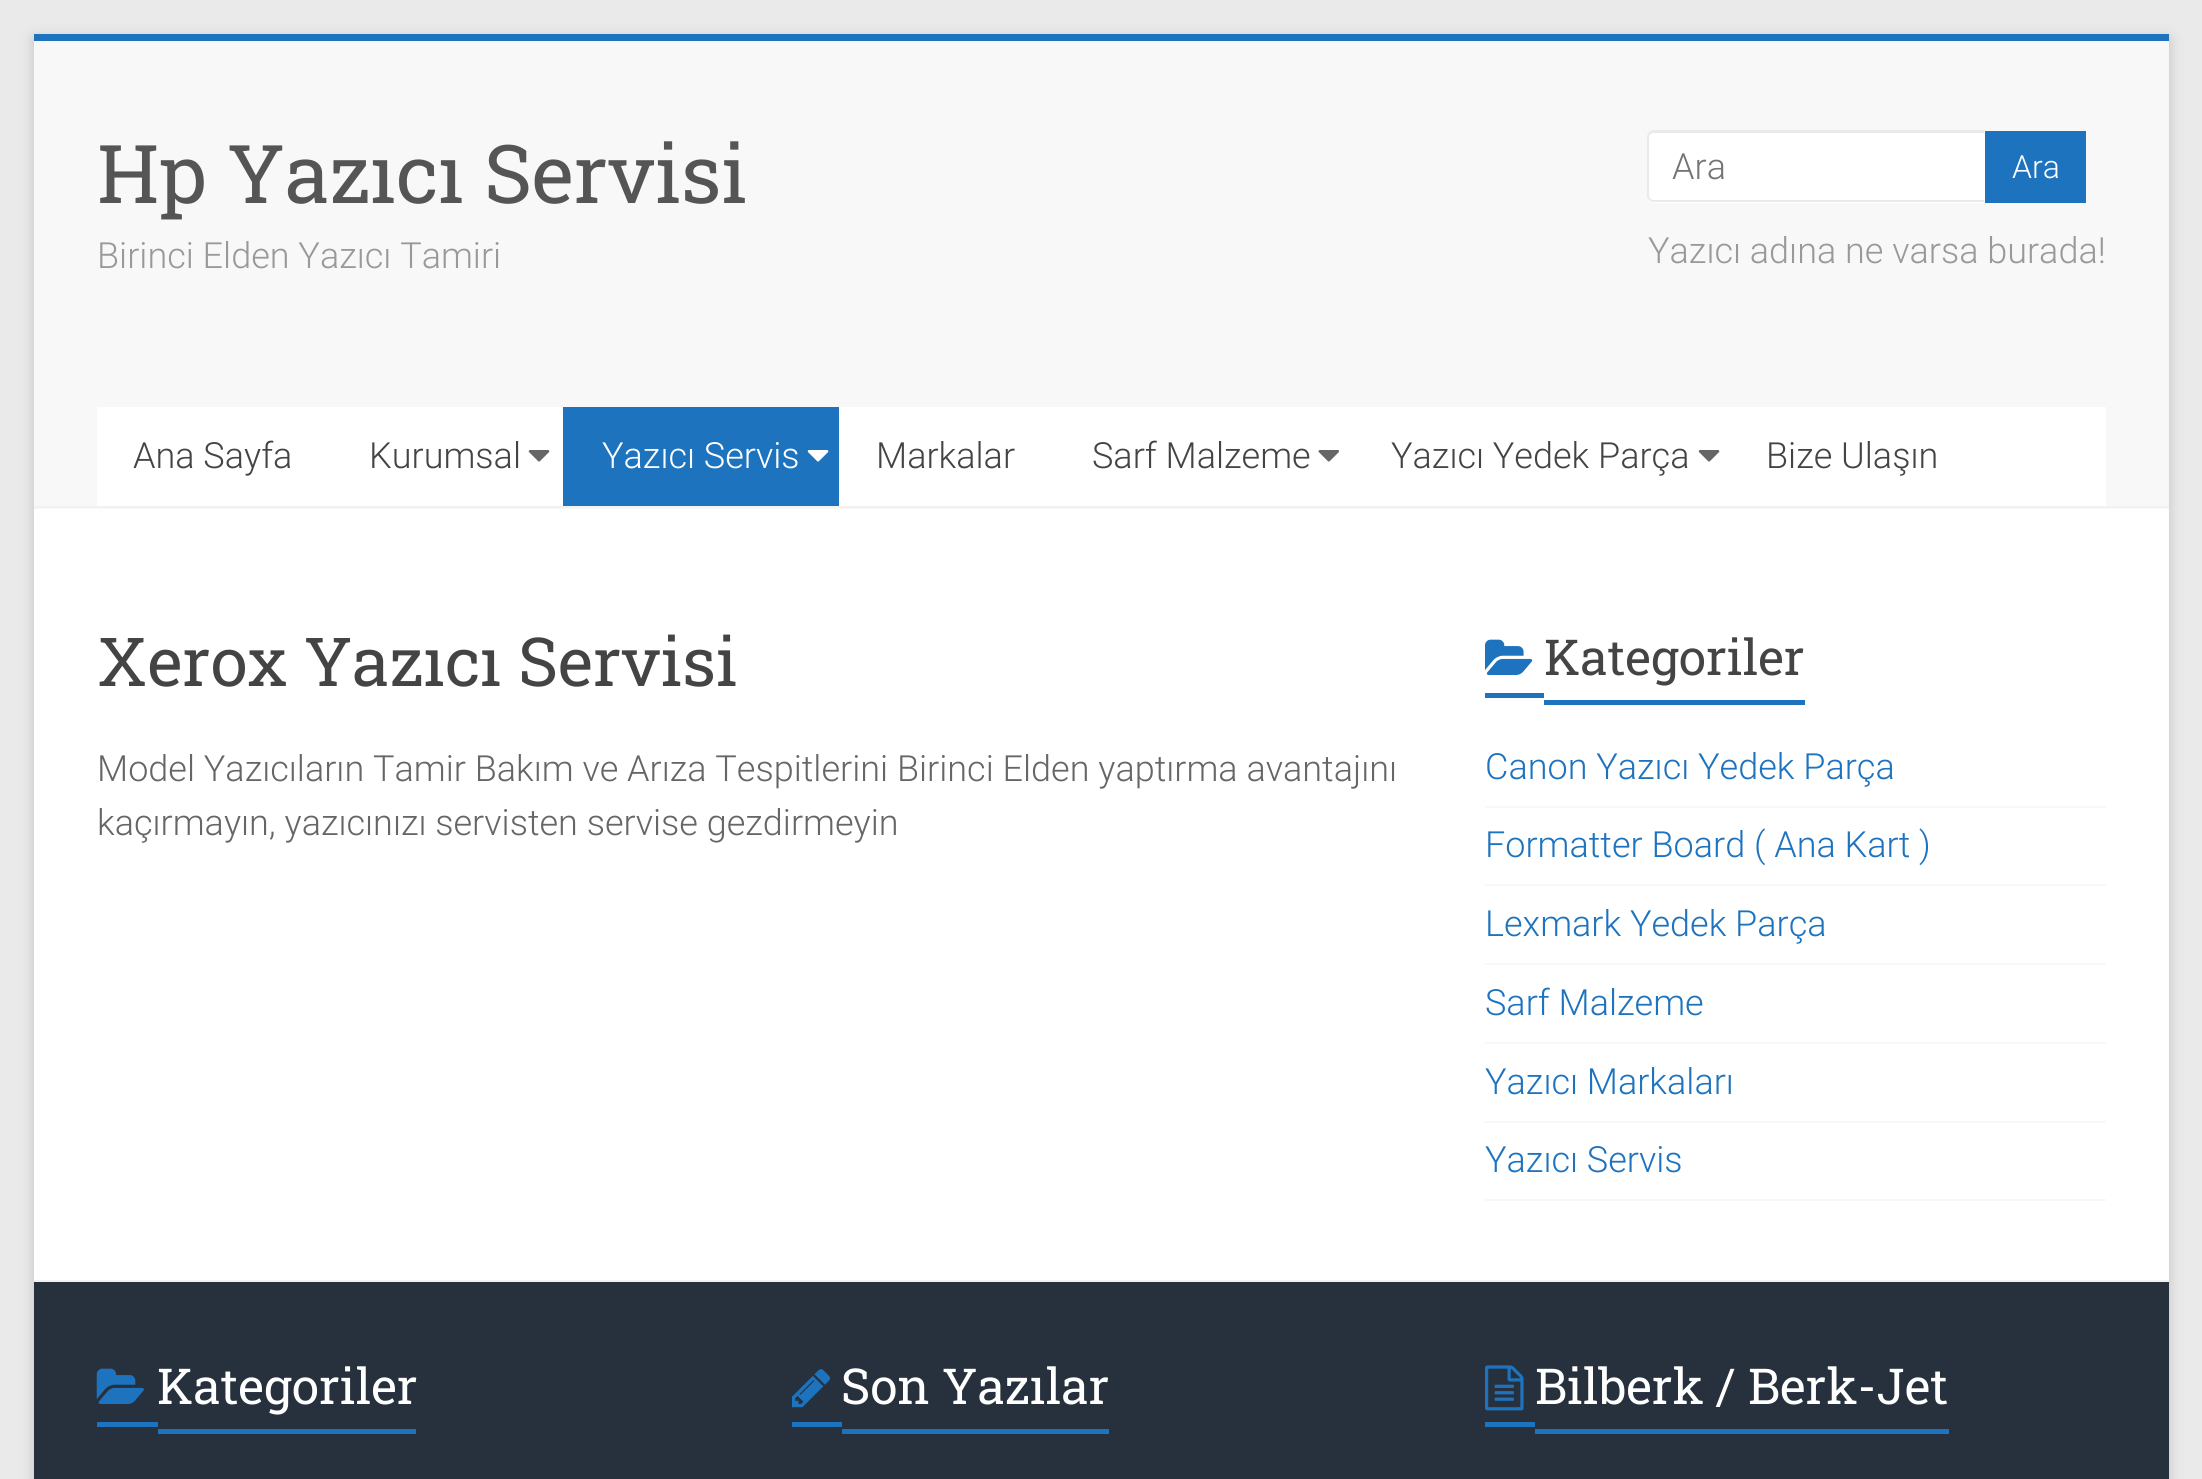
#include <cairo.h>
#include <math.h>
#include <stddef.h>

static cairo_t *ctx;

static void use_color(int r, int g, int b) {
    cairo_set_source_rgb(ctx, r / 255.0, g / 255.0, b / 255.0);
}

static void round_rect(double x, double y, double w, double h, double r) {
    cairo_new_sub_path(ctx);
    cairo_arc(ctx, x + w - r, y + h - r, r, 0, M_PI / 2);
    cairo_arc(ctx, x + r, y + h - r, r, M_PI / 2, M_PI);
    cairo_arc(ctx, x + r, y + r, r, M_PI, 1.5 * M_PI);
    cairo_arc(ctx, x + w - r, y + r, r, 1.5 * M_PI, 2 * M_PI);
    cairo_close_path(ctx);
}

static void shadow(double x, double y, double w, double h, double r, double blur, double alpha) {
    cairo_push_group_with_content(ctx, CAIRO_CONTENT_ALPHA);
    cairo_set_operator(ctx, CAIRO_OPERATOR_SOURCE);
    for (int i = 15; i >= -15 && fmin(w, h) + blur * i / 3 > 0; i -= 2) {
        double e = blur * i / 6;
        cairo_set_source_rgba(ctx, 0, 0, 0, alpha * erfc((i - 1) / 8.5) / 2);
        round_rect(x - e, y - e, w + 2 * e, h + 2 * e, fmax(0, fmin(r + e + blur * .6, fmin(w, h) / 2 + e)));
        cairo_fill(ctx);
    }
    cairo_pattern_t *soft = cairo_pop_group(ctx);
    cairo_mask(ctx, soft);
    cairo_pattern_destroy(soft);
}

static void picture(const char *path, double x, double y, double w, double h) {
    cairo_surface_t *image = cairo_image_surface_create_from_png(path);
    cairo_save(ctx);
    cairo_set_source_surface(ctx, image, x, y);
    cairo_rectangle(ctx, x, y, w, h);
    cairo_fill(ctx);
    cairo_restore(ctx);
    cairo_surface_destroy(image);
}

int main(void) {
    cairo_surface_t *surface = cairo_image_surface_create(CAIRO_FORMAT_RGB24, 2202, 1479);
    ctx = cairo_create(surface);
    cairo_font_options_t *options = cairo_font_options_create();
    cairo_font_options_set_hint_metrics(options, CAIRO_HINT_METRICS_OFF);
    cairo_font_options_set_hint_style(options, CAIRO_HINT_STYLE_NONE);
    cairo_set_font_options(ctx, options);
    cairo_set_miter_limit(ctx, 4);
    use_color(234, 234, 234);
    cairo_paint(ctx);
    use_color(100, 100, 100);
    shadow(34, 38, 2135, 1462, 0, 7, 0.3);
    use_color(255, 255, 255);
    cairo_rectangle(ctx, 34, 509, 2135, 771);
    cairo_fill(ctx);
    use_color(30, 115, 190);
    cairo_rectangle(ctx, 34, 34, 2135, 7);
    cairo_fill(ctx);
    use_color(248, 248, 248);
    cairo_rectangle(ctx, 34, 41, 2135, 468);
    cairo_fill(ctx);
    use_color(242, 242, 242);
    cairo_rectangle(ctx, 34, 506, 2135, 2);
    cairo_fill(ctx);
    cairo_select_font_face(ctx, "Roboto Slab", CAIRO_FONT_SLANT_NORMAL, CAIRO_FONT_WEIGHT_NORMAL);
    cairo_set_font_size(ctx, 81);
    use_color(85, 85, 85);
    cairo_move_to(ctx, 97, 203);
    cairo_show_text(ctx, "Hp Yazıcı Servisi");
    cairo_select_font_face(ctx, "Roboto Light", CAIRO_FONT_SLANT_NORMAL, CAIRO_FONT_WEIGHT_NORMAL);
    cairo_set_font_size(ctx, 36);
    use_color(153, 153, 153);
    cairo_move_to(ctx, 97, 268);
    cairo_show_text(ctx, "Birinci Elden Yazıcı Tamiri");
    use_color(255, 255, 255);
    cairo_new_path(ctx);
    cairo_move_to(ctx, 1654, 131);
    cairo_line_to(ctx, 1985, 131);
    cairo_line_to(ctx, 1985, 203);
    cairo_line_to(ctx, 1654, 203);
    cairo_curve_to(ctx, 1650, 203, 1647, 200, 1647, 196);
    cairo_line_to(ctx, 1647, 138);
    cairo_curve_to(ctx, 1647, 134, 1650, 131, 1654, 131);
    cairo_close_path(ctx);
    cairo_fill(ctx);
    use_color(234, 234, 234);
    cairo_set_fill_rule(ctx, CAIRO_FILL_RULE_EVEN_ODD);
    cairo_new_path(ctx);
    cairo_move_to(ctx, 1654, 130);
    cairo_line_to(ctx, 1984, 130);
    cairo_line_to(ctx, 1984, 202);
    cairo_line_to(ctx, 1654, 202);
    cairo_curve_to(ctx, 1650, 202, 1647, 199, 1647, 196);
    cairo_line_to(ctx, 1647, 137);
    cairo_curve_to(ctx, 1647, 134, 1650, 130, 1654, 130);
    cairo_close_path(ctx);
    cairo_move_to(ctx, 1654, 133);
    cairo_line_to(ctx, 1984, 133);
    cairo_line_to(ctx, 1984, 200);
    cairo_line_to(ctx, 1654, 200);
    cairo_curve_to(ctx, 1651, 200, 1649, 198, 1649, 196);
    cairo_line_to(ctx, 1649, 137);
    cairo_curve_to(ctx, 1649, 135, 1651, 133, 1654, 133);
    cairo_close_path(ctx);
    cairo_fill(ctx);
    use_color(117, 117, 117);
    cairo_move_to(ctx, 1672, 179);
    cairo_show_text(ctx, "Ara");
    use_color(30, 115, 190);
    cairo_rectangle(ctx, 1985, 131, 101, 72);
    cairo_fill(ctx);
    cairo_set_font_size(ctx, 32);
    use_color(255, 255, 255);
    cairo_move_to(ctx, 2012, 178);
    cairo_show_text(ctx, "Ara");
    cairo_set_font_size(ctx, 36);
    use_color(153, 153, 153);
    cairo_move_to(ctx, 1648, 263);
    cairo_show_text(ctx, "Yazıcı adına ne varsa burada!");
    use_color(255, 255, 255);
    cairo_rectangle(ctx, 97, 407, 2009, 99);
    cairo_fill(ctx);
    use_color(68, 68, 68);
    cairo_move_to(ctx, 133, 468);
    cairo_show_text(ctx, "Ana Sayfa");
    cairo_move_to(ctx, 369, 468);
    cairo_show_text(ctx, "Kurumsal");
    picture("img1.png", 528, 450, 22, 12);
    use_color(30, 115, 190);
    cairo_rectangle(ctx, 563, 407, 276, 99);
    cairo_fill(ctx);
    use_color(255, 255, 255);
    cairo_move_to(ctx, 602, 468);
    cairo_show_text(ctx, "Yazıcı Servis");
    picture("img2.png", 807, 450, 22, 12);
    use_color(68, 68, 68);
    cairo_move_to(ctx, 876, 468);
    cairo_show_text(ctx, "Markalar");
    cairo_move_to(ctx, 1092, 468);
    cairo_show_text(ctx, "Sarf Malzeme");
    picture("img3.png", 1318, 450, 21, 12);
    cairo_move_to(ctx, 1391, 468);
    cairo_show_text(ctx, "Yazıcı Yedek Parça");
    picture("img1.png", 1698, 450, 22, 12);
    cairo_move_to(ctx, 1766, 468);
    cairo_show_text(ctx, "Bize Ulaşın");
    cairo_select_font_face(ctx, "Roboto Slab", CAIRO_FONT_SLANT_NORMAL, CAIRO_FONT_WEIGHT_NORMAL);
    cairo_set_font_size(ctx, 67.5);
    cairo_move_to(ctx, 97, 686);
    cairo_show_text(ctx, "Xerox Yazıcı Servisi");
    cairo_select_font_face(ctx, "Roboto Light", CAIRO_FONT_SLANT_NORMAL, CAIRO_FONT_WEIGHT_NORMAL);
    cairo_set_font_size(ctx, 36);
    use_color(102, 102, 102);
    cairo_move_to(ctx, 97, 781);
    cairo_show_text(ctx, "Model Yazıcıların Tamir Bakım ve Arıza Tespitlerini Birinci Elden yaptırma avantajını");
    cairo_move_to(ctx, 97, 835);
    cairo_show_text(ctx, "kaçırmayın, yazıcınızı servisten servise gezdirmeyin");
    picture("img4.png", 1485, 639, 48, 36);
    cairo_select_font_face(ctx, "Roboto Slab", CAIRO_FONT_SLANT_NORMAL, CAIRO_FONT_WEIGHT_NORMAL);
    cairo_set_font_size(ctx, 49.5);
    use_color(68, 68, 68);
    cairo_move_to(ctx, 1544, 675);
    cairo_show_text(ctx, "Kategoriler");
    use_color(30, 115, 190);
    cairo_rectangle(ctx, 1485, 693, 59, 5);
    cairo_fill(ctx);
    cairo_rectangle(ctx, 1544, 700, 261, 5);
    cairo_fill(ctx);
    use_color(248, 248, 248);
    cairo_rectangle(ctx, 1485, 806, 621, 2);
    cairo_fill(ctx);
    cairo_select_font_face(ctx, "Roboto Light", CAIRO_FONT_SLANT_NORMAL, CAIRO_FONT_WEIGHT_NORMAL);
    cairo_set_font_size(ctx, 36);
    use_color(30, 115, 190);
    cairo_move_to(ctx, 1485, 779);
    cairo_show_text(ctx, "Canon Yazıcı Yedek Parça");
    use_color(248, 248, 248);
    cairo_rectangle(ctx, 1485, 884, 621, 2);
    cairo_fill(ctx);
    use_color(30, 115, 190);
    cairo_move_to(ctx, 1485, 857);
    cairo_show_text(ctx, "Formatter Board ( Ana Kart )");
    use_color(248, 248, 248);
    cairo_rectangle(ctx, 1485, 963, 621, 2);
    cairo_fill(ctx);
    use_color(30, 115, 190);
    cairo_move_to(ctx, 1485, 936);
    cairo_show_text(ctx, "Lexmark Yedek Parça");
    use_color(248, 248, 248);
    cairo_rectangle(ctx, 1485, 1042, 621, 2);
    cairo_fill(ctx);
    use_color(30, 115, 190);
    cairo_move_to(ctx, 1485, 1015);
    cairo_show_text(ctx, "Sarf Malzeme");
    use_color(248, 248, 248);
    cairo_rectangle(ctx, 1485, 1121, 621, 2);
    cairo_fill(ctx);
    use_color(30, 115, 190);
    cairo_move_to(ctx, 1485, 1094);
    cairo_show_text(ctx, "Yazıcı Markaları");
    use_color(248, 248, 248);
    cairo_rectangle(ctx, 1485, 1199, 621, 2);
    cairo_fill(ctx);
    use_color(30, 115, 190);
    cairo_move_to(ctx, 1485, 1172);
    cairo_show_text(ctx, "Yazıcı Servis");
    use_color(39, 49, 61);
    cairo_rectangle(ctx, 34, 1282, 2135, 197);
    cairo_fill(ctx);
    use_color(242, 242, 242);
    cairo_rectangle(ctx, 34, 1280, 2135, 2);
    cairo_fill(ctx);
    picture("img5.png", 96, 1368, 48, 36);
    cairo_select_font_face(ctx, "Roboto Slab", CAIRO_FONT_SLANT_NORMAL, CAIRO_FONT_WEIGHT_NORMAL);
    cairo_set_font_size(ctx, 49.5);
    use_color(255, 255, 255);
    cairo_move_to(ctx, 157, 1404);
    cairo_show_text(ctx, "Kategoriler");
    use_color(30, 115, 190);
    cairo_rectangle(ctx, 97, 1422, 61, 5);
    cairo_fill(ctx);
    cairo_rectangle(ctx, 158, 1429, 258, 5);
    cairo_fill(ctx);
    picture("img6.png", 792, 1369, 38, 39);
    use_color(255, 255, 255);
    cairo_move_to(ctx, 841, 1404);
    cairo_show_text(ctx, "Son Yazılar");
    use_color(30, 115, 190);
    cairo_rectangle(ctx, 792, 1422, 50, 5);
    cairo_fill(ctx);
    cairo_rectangle(ctx, 842, 1429, 267, 5);
    cairo_fill(ctx);
    picture("img7.png", 1485, 1365, 39, 46);
    use_color(255, 255, 255);
    cairo_move_to(ctx, 1535, 1404);
    cairo_show_text(ctx, "Bilberk / Berk-Jet");
    use_color(30, 115, 190);
    cairo_rectangle(ctx, 1485, 1422, 50, 5);
    cairo_fill(ctx);
    cairo_rectangle(ctx, 1535, 1429, 414, 5);
    cairo_fill(ctx);
    cairo_surface_write_to_png(surface, "result.png");
    cairo_font_options_destroy(options);
    cairo_destroy(ctx);
    cairo_surface_destroy(surface);
    return 0;
}
